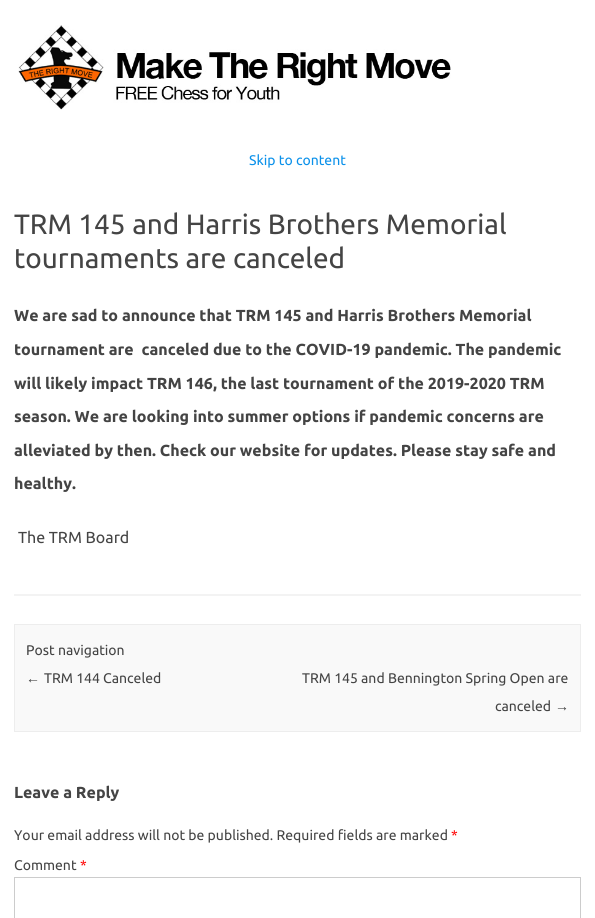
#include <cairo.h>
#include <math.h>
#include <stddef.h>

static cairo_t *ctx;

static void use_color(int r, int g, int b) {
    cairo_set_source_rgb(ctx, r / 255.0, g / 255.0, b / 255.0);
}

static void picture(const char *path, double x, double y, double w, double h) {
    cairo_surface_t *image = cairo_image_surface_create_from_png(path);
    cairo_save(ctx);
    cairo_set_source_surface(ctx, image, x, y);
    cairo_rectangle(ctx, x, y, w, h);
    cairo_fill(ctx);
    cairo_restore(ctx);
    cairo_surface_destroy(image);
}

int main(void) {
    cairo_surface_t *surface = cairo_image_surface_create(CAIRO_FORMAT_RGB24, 595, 918);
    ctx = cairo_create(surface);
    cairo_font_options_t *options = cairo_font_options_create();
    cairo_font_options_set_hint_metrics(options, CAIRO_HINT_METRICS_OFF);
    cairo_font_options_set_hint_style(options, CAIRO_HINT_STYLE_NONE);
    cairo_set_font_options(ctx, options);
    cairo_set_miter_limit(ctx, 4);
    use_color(255, 255, 255);
    cairo_paint(ctx);
    picture("img1.png", 18, 25, 433, 85);
    cairo_select_font_face(ctx, "Ubuntu", CAIRO_FONT_SLANT_NORMAL, CAIRO_FONT_WEIGHT_NORMAL);
    cairo_set_font_size(ctx, 14);
    use_color(11, 145, 234);
    cairo_move_to(ctx, 249, 165);
    cairo_show_text(ctx, "Skip to content");
    use_color(243, 243, 243);
    cairo_rectangle(ctx, 14, 594, 567, 2);
    cairo_fill(ctx);
    cairo_set_font_size(ctx, 28);
    use_color(68, 68, 68);
    cairo_move_to(ctx, 14, 234);
    cairo_show_text(ctx, "TRM 145 and Harris Brothers Memorial");
    cairo_move_to(ctx, 14, 268);
    cairo_show_text(ctx, "tournaments are canceled");
    cairo_select_font_face(ctx, "Ubuntu", CAIRO_FONT_SLANT_NORMAL, CAIRO_FONT_WEIGHT_BOLD);
    cairo_set_font_size(ctx, 16);
    cairo_move_to(ctx, 14, 321);
    cairo_show_text(ctx, "We are sad to announce that TRM 145 and Harris Brothers Memorial");
    cairo_move_to(ctx, 14, 355);
    cairo_show_text(ctx, "tournament are  canceled due to the COVID-19 pandemic. The pandemic");
    cairo_move_to(ctx, 14, 389);
    cairo_show_text(ctx, "will likely impact TRM 146, the last tournament of the 2019-2020 TRM");
    cairo_move_to(ctx, 14, 422);
    cairo_show_text(ctx, "season. We are looking into summer options if pandemic concerns are");
    cairo_move_to(ctx, 14, 456);
    cairo_show_text(ctx, "alleviated by then. Check our website for updates. Please stay safe and");
    cairo_move_to(ctx, 14, 489);
    cairo_show_text(ctx, "healthy.");
    cairo_select_font_face(ctx, "Ubuntu", CAIRO_FONT_SLANT_NORMAL, CAIRO_FONT_WEIGHT_NORMAL);
    cairo_move_to(ctx, 18, 543);
    cairo_show_text(ctx, "The TRM Board");
    use_color(249, 249, 249);
    cairo_rectangle(ctx, 14.5, 624.5, 566, 107);
    cairo_fill_preserve(ctx);
    use_color(237, 237, 237);
    cairo_set_line_width(ctx, 1);
    cairo_stroke(ctx);
    cairo_set_font_size(ctx, 14);
    use_color(68, 68, 68);
    cairo_move_to(ctx, 26, 655);
    cairo_show_text(ctx, "Post navigation");
    cairo_select_font_face(ctx, "Liberation Sans", CAIRO_FONT_SLANT_NORMAL, CAIRO_FONT_WEIGHT_NORMAL);
    cairo_move_to(ctx, 26, 683);
    cairo_show_text(ctx, "←");
    cairo_select_font_face(ctx, "Ubuntu", CAIRO_FONT_SLANT_NORMAL, CAIRO_FONT_WEIGHT_NORMAL);
    cairo_move_to(ctx, 44, 683);
    cairo_show_text(ctx, "TRM 144 Canceled");
    cairo_move_to(ctx, 302, 683);
    cairo_show_text(ctx, "TRM 145 and Bennington Spring Open are");
    cairo_move_to(ctx, 495, 711);
    cairo_show_text(ctx, "canceled");
    cairo_select_font_face(ctx, "Liberation Sans", CAIRO_FONT_SLANT_NORMAL, CAIRO_FONT_WEIGHT_NORMAL);
    cairo_move_to(ctx, 555, 711);
    cairo_show_text(ctx, "→");
    cairo_select_font_face(ctx, "Ubuntu", CAIRO_FONT_SLANT_NORMAL, CAIRO_FONT_WEIGHT_BOLD);
    cairo_set_font_size(ctx, 16);
    cairo_move_to(ctx, 14, 798);
    cairo_show_text(ctx, "Leave a Reply");
    cairo_select_font_face(ctx, "Ubuntu", CAIRO_FONT_SLANT_NORMAL, CAIRO_FONT_WEIGHT_NORMAL);
    cairo_set_font_size(ctx, 14);
    cairo_move_to(ctx, 14, 840);
    cairo_show_text(ctx, "Your email address will not be published. Required fields are marked");
    use_color(255, 0, 0);
    cairo_move_to(ctx, 451, 840);
    cairo_show_text(ctx, "*");
    use_color(68, 68, 68);
    cairo_move_to(ctx, 14, 870);
    cairo_show_text(ctx, "Comment");
    use_color(255, 0, 0);
    cairo_move_to(ctx, 80, 870);
    cairo_show_text(ctx, "*");
    cairo_rectangle(ctx, 14.5, 877.5, 566, 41);
    use_color(204, 204, 204);
    cairo_stroke(ctx);
    cairo_surface_write_to_png(surface, "result.png");
    cairo_font_options_destroy(options);
    cairo_destroy(ctx);
    cairo_surface_destroy(surface);
    return 0;
}
